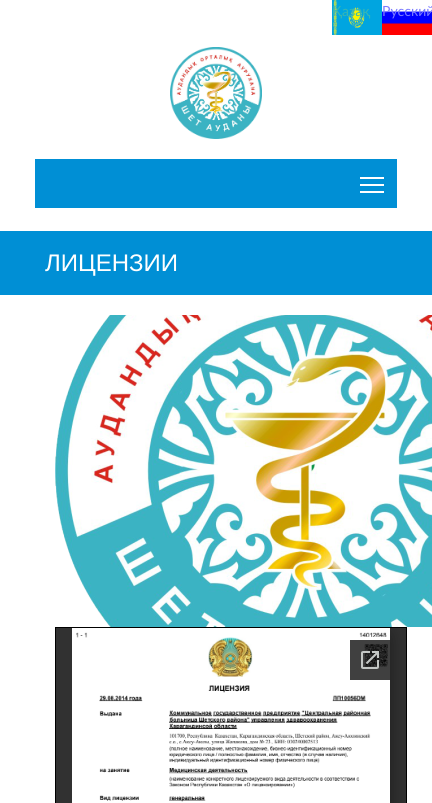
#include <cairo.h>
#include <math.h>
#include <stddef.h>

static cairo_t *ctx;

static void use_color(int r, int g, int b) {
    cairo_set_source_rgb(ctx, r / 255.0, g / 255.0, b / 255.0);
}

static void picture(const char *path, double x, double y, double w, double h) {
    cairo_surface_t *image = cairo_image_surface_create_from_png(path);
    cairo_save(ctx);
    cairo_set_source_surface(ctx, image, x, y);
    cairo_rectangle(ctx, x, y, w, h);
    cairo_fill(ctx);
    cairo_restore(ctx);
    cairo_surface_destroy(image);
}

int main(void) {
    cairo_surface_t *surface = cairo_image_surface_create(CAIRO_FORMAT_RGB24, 432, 803);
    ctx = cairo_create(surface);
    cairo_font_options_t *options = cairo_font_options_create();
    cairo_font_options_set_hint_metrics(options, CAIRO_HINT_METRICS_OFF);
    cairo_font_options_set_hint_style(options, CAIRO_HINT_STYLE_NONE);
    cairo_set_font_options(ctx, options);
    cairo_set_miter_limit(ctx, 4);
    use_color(255, 255, 255);
    cairo_paint(ctx);
    picture("img1.png", 332, 0, 50, 35);
    cairo_select_font_face(ctx, "Lato", CAIRO_FONT_SLANT_NORMAL, CAIRO_FONT_WEIGHT_NORMAL);
    cairo_set_font_size(ctx, 14);
    use_color(56, 182, 177);
    cairo_move_to(ctx, 332, 16);
    cairo_show_text(ctx, "Қазақ");
    picture("img2.png", 382, 11, 50, 24);
    use_color(124, 124, 255);
    cairo_move_to(ctx, 382, 16);
    cairo_show_text(ctx, "Русский");
    picture("img3.png", 170, 47, 92, 92);
    use_color(0, 143, 213);
    cairo_rectangle(ctx, 35, 159, 362, 49);
    cairo_fill(ctx);
    use_color(255, 255, 255);
    cairo_rectangle(ctx, 360, 184, 24, 2);
    cairo_fill(ctx);
    cairo_rectangle(ctx, 360, 177, 24, 2);
    cairo_fill(ctx);
    cairo_rectangle(ctx, 360, 191, 24, 2);
    cairo_fill(ctx);
    use_color(0, 143, 213);
    cairo_rectangle(ctx, 0, 231, 432, 64);
    cairo_fill(ctx);
    cairo_select_font_face(ctx, "Liberation Sans", CAIRO_FONT_SLANT_NORMAL, CAIRO_FONT_WEIGHT_NORMAL);
    cairo_set_font_size(ctx, 24);
    use_color(255, 255, 255);
    cairo_move_to(ctx, 45, 271);
    cairo_show_text(ctx, "ЛИЦЕНЗИИ");
    picture("img4.png", 55, 315, 377, 312);
    cairo_rectangle(ctx, 55.5, 627.5, 351, 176);
    use_color(0, 0, 0);
    cairo_set_line_width(ctx, 1);
    cairo_stroke(ctx);
    picture("img5.png", 56, 628, 350, 175);
    cairo_surface_write_to_png(surface, "result.png");
    cairo_font_options_destroy(options);
    cairo_destroy(ctx);
    cairo_surface_destroy(surface);
    return 0;
}
